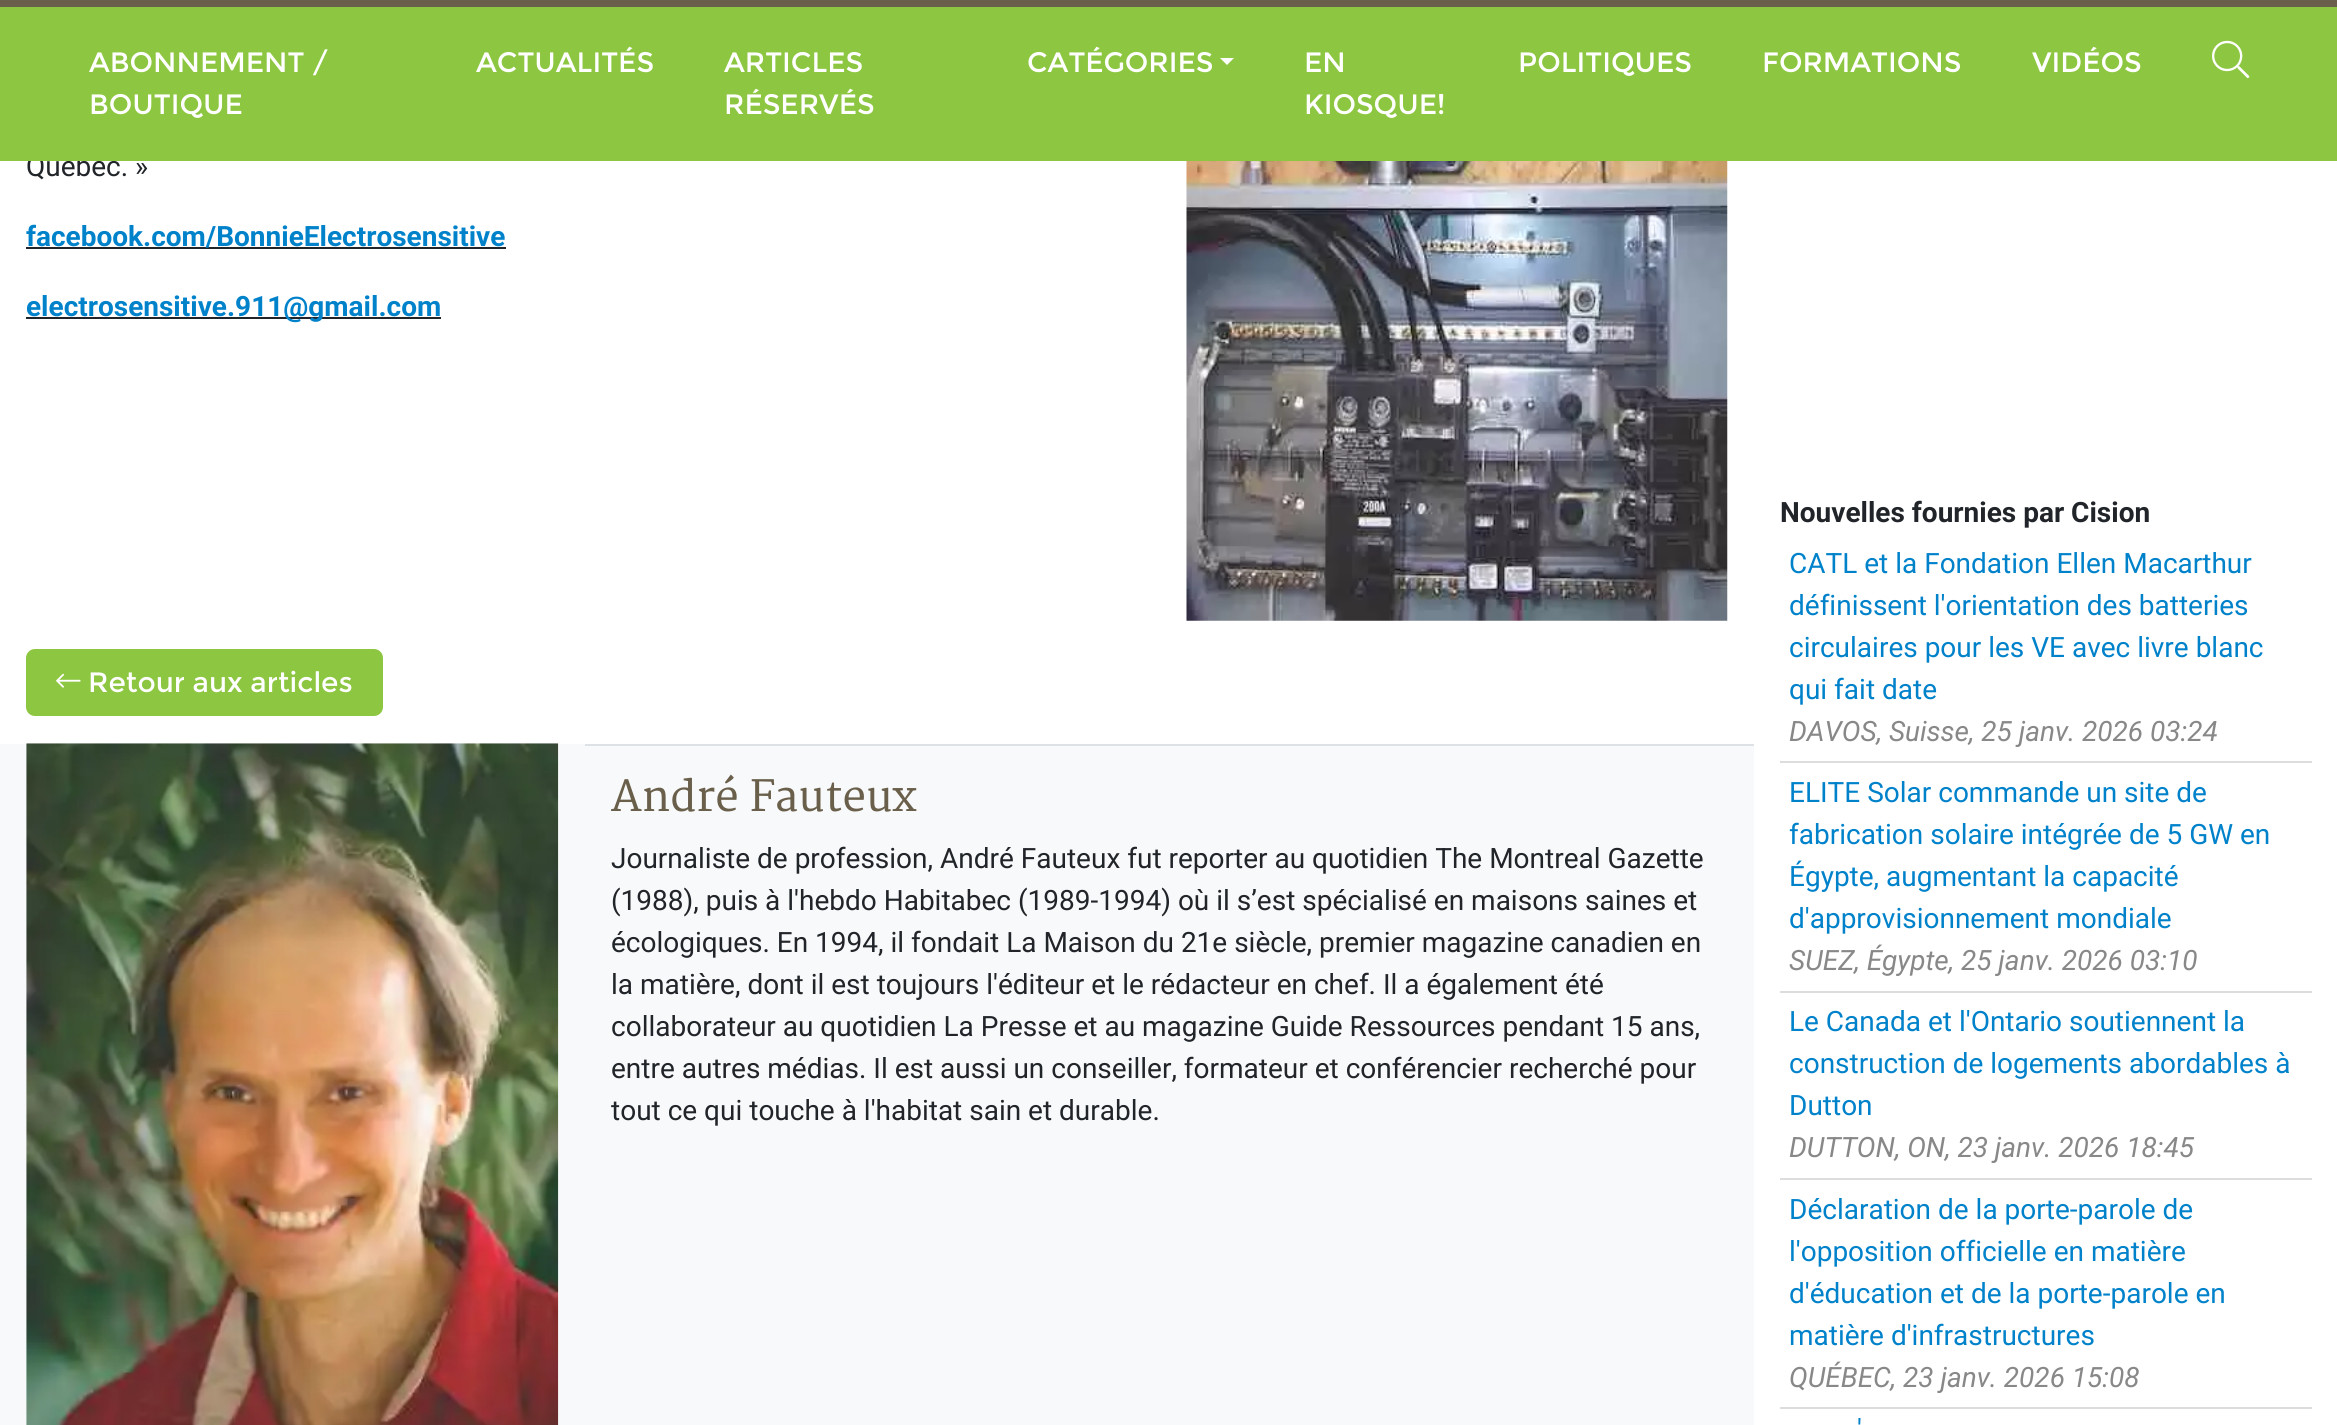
#include <cairo.h>
#include <math.h>
#include <stddef.h>

static cairo_t *ctx;

static void use_color(int r, int g, int b) {
    cairo_set_source_rgb(ctx, r / 255.0, g / 255.0, b / 255.0);
}

static void round_rect(double x, double y, double w, double h, double r) {
    cairo_new_sub_path(ctx);
    cairo_arc(ctx, x + w - r, y + h - r, r, 0, M_PI / 2);
    cairo_arc(ctx, x + r, y + h - r, r, M_PI / 2, M_PI);
    cairo_arc(ctx, x + r, y + r, r, M_PI, 1.5 * M_PI);
    cairo_arc(ctx, x + w - r, y + r, r, 1.5 * M_PI, 2 * M_PI);
    cairo_close_path(ctx);
}

static void picture(const char *path, double x, double y, double w, double h) {
    cairo_surface_t *image = cairo_image_surface_create_from_png(path);
    cairo_save(ctx);
    cairo_set_source_surface(ctx, image, x, y);
    cairo_rectangle(ctx, x, y, w, h);
    cairo_fill(ctx);
    cairo_restore(ctx);
    cairo_surface_destroy(image);
}

int main(void) {
    cairo_surface_t *surface = cairo_image_surface_create(CAIRO_FORMAT_RGB24, 2337, 1425);
    ctx = cairo_create(surface);
    cairo_font_options_t *options = cairo_font_options_create();
    cairo_font_options_set_hint_metrics(options, CAIRO_HINT_METRICS_OFF);
    cairo_font_options_set_hint_style(options, CAIRO_HINT_STYLE_NONE);
    cairo_set_font_options(ctx, options);
    cairo_set_miter_limit(ctx, 4);
    use_color(255, 255, 255);
    cairo_paint(ctx);
    cairo_select_font_face(ctx, "Roboto", CAIRO_FONT_SLANT_NORMAL, CAIRO_FONT_WEIGHT_NORMAL);
    cairo_set_font_size(ctx, 28);
    use_color(33, 37, 41);
    cairo_move_to(ctx, 26, 176);
    cairo_show_text(ctx, "Québec. »");
    use_color(141, 198, 65);
    cairo_rectangle(ctx, 0, 7, 2337, 154);
    cairo_fill(ctx);
    use_color(105, 95, 75);
    cairo_rectangle(ctx, 0, 0, 2337, 7);
    cairo_fill(ctx);
    cairo_select_font_face(ctx, "Montserrat", CAIRO_FONT_SLANT_NORMAL, CAIRO_FONT_WEIGHT_NORMAL);
    use_color(255, 255, 255);
    cairo_move_to(ctx, 89, 72);
    cairo_show_text(ctx, "ABONNEMENT /");
    cairo_move_to(ctx, 89, 114);
    cairo_show_text(ctx, "BOUTIQUE");
    cairo_move_to(ctx, 476, 72);
    cairo_show_text(ctx, "ACTUALITÉS");
    cairo_move_to(ctx, 724, 72);
    cairo_show_text(ctx, "ARTICLES");
    cairo_move_to(ctx, 724, 114);
    cairo_show_text(ctx, "RÉSERVÉS");
    cairo_move_to(ctx, 1027, 72);
    cairo_show_text(ctx, "CATÉGORIES");
    cairo_new_path(ctx);
    cairo_move_to(ctx, 1220, 58);
    cairo_line_to(ctx, 1234, 58);
    cairo_line_to(ctx, 1227, 65);
    cairo_close_path(ctx);
    cairo_fill(ctx);
    cairo_move_to(ctx, 1304, 72);
    cairo_show_text(ctx, "EN");
    cairo_move_to(ctx, 1304, 114);
    cairo_show_text(ctx, "KIOSQUE!");
    cairo_move_to(ctx, 1518, 72);
    cairo_show_text(ctx, "POLITIQUES");
    cairo_move_to(ctx, 1762, 72);
    cairo_show_text(ctx, "FORMATIONS");
    cairo_move_to(ctx, 2032, 72);
    cairo_show_text(ctx, "VIDÉOS");
    picture("img1.png", 2212, 40, 38, 39);
    picture("img2.png", 1186, 161, 542, 460);
    use_color(33, 37, 41);
    cairo_rectangle(ctx, 26, 247, 480, 2);
    cairo_fill(ctx);
    cairo_select_font_face(ctx, "Roboto", CAIRO_FONT_SLANT_NORMAL, CAIRO_FONT_WEIGHT_BOLD);
    use_color(0, 130, 203);
    cairo_move_to(ctx, 26, 246);
    cairo_show_text(ctx, "facebook.com/BonnieElectrosensitive");
    use_color(33, 37, 41);
    cairo_rectangle(ctx, 26, 317, 415, 2);
    cairo_fill(ctx);
    use_color(0, 130, 203);
    cairo_move_to(ctx, 26, 316);
    cairo_show_text(ctx, "electrosensitive.911@gmail.com");
    use_color(141, 198, 65);
    round_rect(27, 650, 355, 65, 8);
    cairo_fill_preserve(ctx);
    cairo_stroke(ctx);
    picture("img3.png", 56, 673, 25, 15);
    cairo_select_font_face(ctx, "Montserrat", CAIRO_FONT_SLANT_NORMAL, CAIRO_FONT_WEIGHT_NORMAL);
    use_color(255, 255, 255);
    cairo_move_to(ctx, 88, 692);
    cairo_show_text(ctx, "Retour aux articles");
    use_color(248, 249, 250);
    cairo_rectangle(ctx, 0, 744, 1754, 681);
    cairo_fill(ctx);
    picture("img4.png", 26, 743, 533, 682);
    use_color(222, 226, 230);
    cairo_rectangle(ctx, 585, 744, 1169, 2);
    cairo_fill(ctx);
    cairo_select_font_face(ctx, "Merriweather", CAIRO_FONT_SLANT_NORMAL, CAIRO_FONT_WEIGHT_NORMAL);
    cairo_set_font_size(ctx, 42);
    use_color(105, 95, 75);
    cairo_move_to(ctx, 611, 811);
    cairo_show_text(ctx, "André Fauteux");
    cairo_select_font_face(ctx, "Roboto", CAIRO_FONT_SLANT_NORMAL, CAIRO_FONT_WEIGHT_NORMAL);
    cairo_set_font_size(ctx, 28);
    use_color(33, 37, 41);
    cairo_move_to(ctx, 611, 868);
    cairo_show_text(ctx, "Journaliste de profession, André Fauteux fut reporter au quotidien The Montreal Gazette");
    cairo_move_to(ctx, 611, 910);
    cairo_show_text(ctx, "(1988), puis à l'hebdo Habitabec (1989-1994) où il s’est spécialisé en maisons saines et");
    cairo_move_to(ctx, 611, 952);
    cairo_show_text(ctx, "écologiques. En 1994, il fondait La Maison du 21e siècle, premier magazine canadien en");
    cairo_move_to(ctx, 611, 994);
    cairo_show_text(ctx, "la matière, dont il est toujours l'éditeur et le rédacteur en chef. Il a également été");
    cairo_move_to(ctx, 611, 1036);
    cairo_show_text(ctx, "collaborateur au quotidien La Presse et au magazine Guide Ressources pendant 15 ans,");
    cairo_move_to(ctx, 611, 1078);
    cairo_show_text(ctx, "entre autres médias. Il est aussi un conseiller, formateur et conférencier recherché pour");
    cairo_move_to(ctx, 611, 1120);
    cairo_show_text(ctx, "tout ce qui touche à l'habitat sain et durable.");
    cairo_select_font_face(ctx, "Roboto", CAIRO_FONT_SLANT_NORMAL, CAIRO_FONT_WEIGHT_BOLD);
    cairo_move_to(ctx, 1780, 522);
    cairo_show_text(ctx, "Nouvelles fournies par Cision");
    use_color(221, 221, 221);
    cairo_rectangle(ctx, 1780, 761, 532, 2);
    cairo_fill(ctx);
    cairo_select_font_face(ctx, "Roboto", CAIRO_FONT_SLANT_NORMAL, CAIRO_FONT_WEIGHT_NORMAL);
    use_color(0, 130, 203);
    cairo_move_to(ctx, 1789, 573);
    cairo_show_text(ctx, "CATL et la Fondation Ellen Macarthur");
    cairo_move_to(ctx, 1789, 615);
    cairo_show_text(ctx, "définissent l'orientation des batteries");
    cairo_move_to(ctx, 1789, 657);
    cairo_show_text(ctx, "circulaires pour les VE avec livre blanc");
    cairo_move_to(ctx, 1789, 699);
    cairo_show_text(ctx, "qui fait date");
    cairo_select_font_face(ctx, "Roboto", CAIRO_FONT_SLANT_ITALIC, CAIRO_FONT_WEIGHT_NORMAL);
    use_color(136, 136, 136);
    cairo_move_to(ctx, 1789, 741);
    cairo_show_text(ctx, "DAVOS, Suisse, 25 janv. 2026 03:24");
    use_color(221, 221, 221);
    cairo_rectangle(ctx, 1780, 991, 532, 2);
    cairo_fill(ctx);
    cairo_select_font_face(ctx, "Roboto", CAIRO_FONT_SLANT_NORMAL, CAIRO_FONT_WEIGHT_NORMAL);
    use_color(0, 130, 203);
    cairo_move_to(ctx, 1789, 802);
    cairo_show_text(ctx, "ELITE Solar commande un site de");
    cairo_move_to(ctx, 1789, 844);
    cairo_show_text(ctx, "fabrication solaire intégrée de 5 GW en");
    cairo_move_to(ctx, 1789, 886);
    cairo_show_text(ctx, "Égypte, augmentant la capacité");
    cairo_move_to(ctx, 1789, 928);
    cairo_show_text(ctx, "d'approvisionnement mondiale");
    cairo_select_font_face(ctx, "Roboto", CAIRO_FONT_SLANT_ITALIC, CAIRO_FONT_WEIGHT_NORMAL);
    use_color(136, 136, 136);
    cairo_move_to(ctx, 1789, 970);
    cairo_show_text(ctx, "SUEZ, Égypte, 25 janv. 2026 03:10");
    use_color(221, 221, 221);
    cairo_rectangle(ctx, 1780, 1178, 532, 2);
    cairo_fill(ctx);
    cairo_select_font_face(ctx, "Roboto", CAIRO_FONT_SLANT_NORMAL, CAIRO_FONT_WEIGHT_NORMAL);
    use_color(0, 130, 203);
    cairo_move_to(ctx, 1789, 1031);
    cairo_show_text(ctx, "Le Canada et l'Ontario soutiennent la");
    cairo_move_to(ctx, 1789, 1073);
    cairo_show_text(ctx, "construction de logements abordables à");
    cairo_move_to(ctx, 1789, 1115);
    cairo_show_text(ctx, "Dutton");
    cairo_select_font_face(ctx, "Roboto", CAIRO_FONT_SLANT_ITALIC, CAIRO_FONT_WEIGHT_NORMAL);
    use_color(136, 136, 136);
    cairo_move_to(ctx, 1789, 1157);
    cairo_show_text(ctx, "DUTTON, ON, 23 janv. 2026 18:45");
    use_color(221, 221, 221);
    cairo_rectangle(ctx, 1780, 1407, 532, 2);
    cairo_fill(ctx);
    cairo_select_font_face(ctx, "Roboto", CAIRO_FONT_SLANT_NORMAL, CAIRO_FONT_WEIGHT_NORMAL);
    use_color(0, 130, 203);
    cairo_move_to(ctx, 1789, 1219);
    cairo_show_text(ctx, "Déclaration de la porte-parole de");
    cairo_move_to(ctx, 1789, 1261);
    cairo_show_text(ctx, "l'opposition officielle en matière");
    cairo_move_to(ctx, 1789, 1303);
    cairo_show_text(ctx, "d'éducation et de la porte-parole en");
    cairo_move_to(ctx, 1789, 1345);
    cairo_show_text(ctx, "matière d'infrastructures");
    cairo_select_font_face(ctx, "Roboto", CAIRO_FONT_SLANT_ITALIC, CAIRO_FONT_WEIGHT_NORMAL);
    use_color(136, 136, 136);
    cairo_move_to(ctx, 1789, 1387);
    cairo_show_text(ctx, "QUÉBEC, 23 janv. 2026 15:08");
    cairo_select_font_face(ctx, "Roboto", CAIRO_FONT_SLANT_NORMAL, CAIRO_FONT_WEIGHT_NORMAL);
    use_color(0, 130, 203);
    cairo_move_to(ctx, 1857, 1439);
    cairo_show_text(ctx, "'");
    cairo_surface_write_to_png(surface, "result.png");
    cairo_font_options_destroy(options);
    cairo_destroy(ctx);
    cairo_surface_destroy(surface);
    return 0;
}
